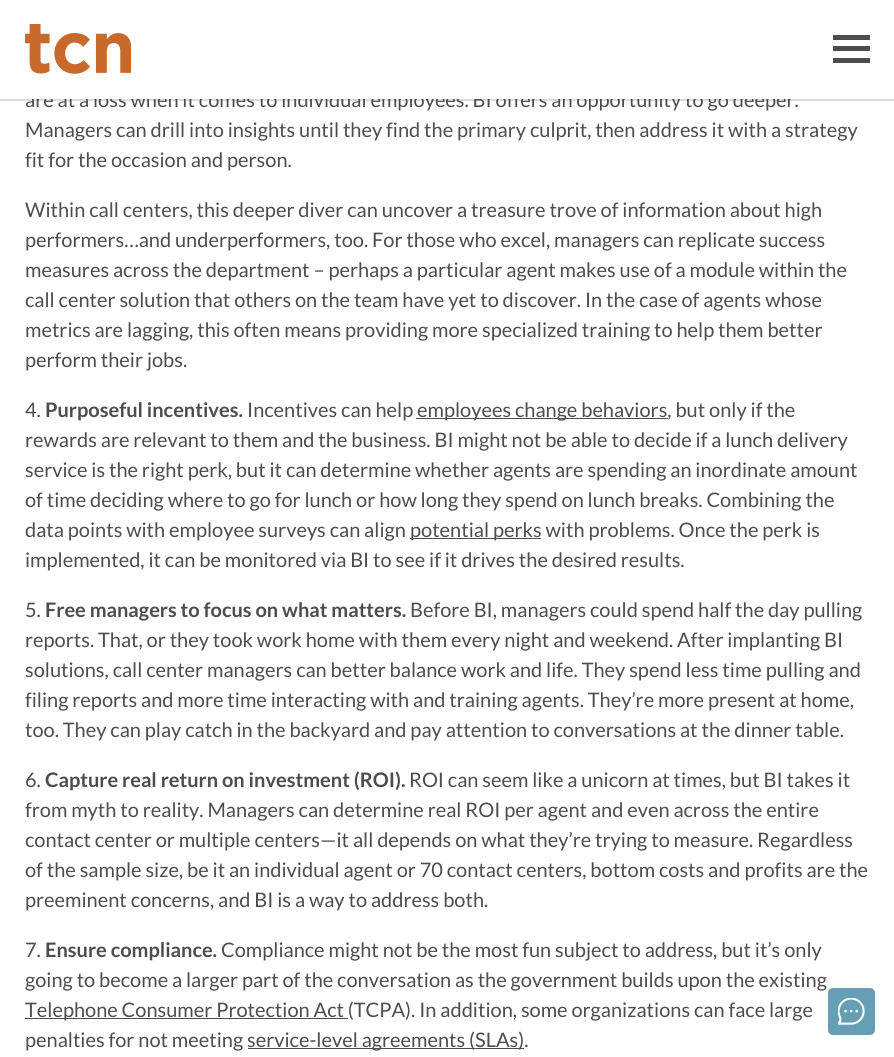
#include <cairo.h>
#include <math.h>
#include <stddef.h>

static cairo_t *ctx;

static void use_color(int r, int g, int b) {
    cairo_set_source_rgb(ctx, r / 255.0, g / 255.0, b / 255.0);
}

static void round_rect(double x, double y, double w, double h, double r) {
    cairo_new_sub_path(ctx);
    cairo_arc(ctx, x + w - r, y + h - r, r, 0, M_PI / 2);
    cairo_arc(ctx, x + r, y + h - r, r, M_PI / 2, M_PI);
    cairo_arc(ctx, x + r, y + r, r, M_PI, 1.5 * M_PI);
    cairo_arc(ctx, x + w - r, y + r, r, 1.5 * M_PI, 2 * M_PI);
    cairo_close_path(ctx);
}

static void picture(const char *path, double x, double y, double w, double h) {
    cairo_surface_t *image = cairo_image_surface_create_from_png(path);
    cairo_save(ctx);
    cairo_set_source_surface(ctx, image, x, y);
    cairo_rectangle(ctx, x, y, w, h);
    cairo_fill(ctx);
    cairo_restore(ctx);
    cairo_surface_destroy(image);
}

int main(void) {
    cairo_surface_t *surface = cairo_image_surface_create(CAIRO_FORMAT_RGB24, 894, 1057);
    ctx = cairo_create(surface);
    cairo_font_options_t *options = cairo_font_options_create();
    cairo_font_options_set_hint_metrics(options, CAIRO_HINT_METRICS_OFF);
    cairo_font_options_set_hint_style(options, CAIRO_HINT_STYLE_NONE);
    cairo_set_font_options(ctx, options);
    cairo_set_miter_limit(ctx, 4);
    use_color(255, 255, 255);
    cairo_paint(ctx);
    cairo_set_source_rgba(ctx, 0.267, 0.267, 0.267, 0.1);
    cairo_rectangle(ctx, 0, 99, 894, 2);
    cairo_fill(ctx);
    cairo_select_font_face(ctx, "Lato", CAIRO_FONT_SLANT_NORMAL, CAIRO_FONT_WEIGHT_NORMAL);
    cairo_set_font_size(ctx, 20);
    use_color(77, 77, 77);
    cairo_move_to(ctx, 25, 107);
    cairo_show_text(ctx, "are at a loss when it comes to individual employees. BI offers an opportunity to go deeper.");
    use_color(255, 255, 255);
    cairo_rectangle(ctx, 26, 92, 768, 7);
    cairo_fill(ctx);
    cairo_set_source_rgba(ctx, 0.267, 0.267, 0.267, 0.1);
    cairo_rectangle(ctx, 0, 99, 894, 2);
    cairo_fill(ctx);
    picture("img1.png", 25, 24, 106, 50);
    use_color(77, 77, 77);
    cairo_rectangle(ctx, 833, 46, 37, 5);
    cairo_fill(ctx);
    cairo_rectangle(ctx, 833, 35, 37, 5);
    cairo_fill(ctx);
    cairo_rectangle(ctx, 833, 58, 37, 5);
    cairo_fill(ctx);
    cairo_move_to(ctx, 25, 137);
    cairo_show_text(ctx, "Managers can drill into insights until they find the primary culprit, then address it with a strategy");
    cairo_move_to(ctx, 25, 167);
    cairo_show_text(ctx, "fit for the occasion and person.");
    cairo_move_to(ctx, 25, 217);
    cairo_show_text(ctx, "Within call centers, this deeper diver can uncover a treasure trove of information about high");
    cairo_move_to(ctx, 25, 247);
    cairo_show_text(ctx, "performers…and underperformers, too. For those who excel, managers can replicate success");
    cairo_move_to(ctx, 25, 277);
    cairo_show_text(ctx, "measures across the department – perhaps a particular agent makes use of a module within the");
    cairo_move_to(ctx, 25, 307);
    cairo_show_text(ctx, "call center solution that others on the team have yet to discover. In the case of agents whose");
    cairo_move_to(ctx, 25, 337);
    cairo_show_text(ctx, "metrics are lagging, this often means providing more specialized training to help them better");
    cairo_move_to(ctx, 25, 367);
    cairo_show_text(ctx, "perform their jobs.");
    cairo_move_to(ctx, 25, 417);
    cairo_show_text(ctx, "4.");
    cairo_select_font_face(ctx, "Lato", CAIRO_FONT_SLANT_NORMAL, CAIRO_FONT_WEIGHT_BOLD);
    cairo_move_to(ctx, 45, 417);
    cairo_show_text(ctx, "Purposeful incentives.");
    cairo_select_font_face(ctx, "Lato", CAIRO_FONT_SLANT_NORMAL, CAIRO_FONT_WEIGHT_NORMAL);
    cairo_move_to(ctx, 247, 417);
    cairo_show_text(ctx, "Incentives can help");
    cairo_rectangle(ctx, 416, 418, 252, 1);
    cairo_fill(ctx);
    cairo_move_to(ctx, 417, 417);
    cairo_show_text(ctx, "employees change behaviors, but only if the");
    cairo_move_to(ctx, 25, 447);
    cairo_show_text(ctx, "rewards are relevant to them and the business. BI might not be able to decide if a lunch delivery");
    cairo_move_to(ctx, 25, 477);
    cairo_show_text(ctx, "service is the right perk, but it can determine whether agents are spending an inordinate amount");
    cairo_move_to(ctx, 25, 507);
    cairo_show_text(ctx, "of time deciding where to go for lunch or how long they spend on lunch breaks. Combining the");
    cairo_move_to(ctx, 25, 537);
    cairo_show_text(ctx, "data points with employee surveys can align");
    cairo_rectangle(ctx, 410, 538, 131, 1);
    cairo_fill(ctx);
    cairo_move_to(ctx, 410, 537);
    cairo_show_text(ctx, "potential perks with problems. Once the perk is");
    cairo_move_to(ctx, 25, 567);
    cairo_show_text(ctx, "implemented, it can be monitored via BI to see if it drives the desired results.");
    cairo_move_to(ctx, 25, 617);
    cairo_show_text(ctx, "5.");
    cairo_select_font_face(ctx, "Lato", CAIRO_FONT_SLANT_NORMAL, CAIRO_FONT_WEIGHT_BOLD);
    cairo_move_to(ctx, 45, 617);
    cairo_show_text(ctx, "Free managers to focus on what matters.");
    cairo_select_font_face(ctx, "Lato", CAIRO_FONT_SLANT_NORMAL, CAIRO_FONT_WEIGHT_NORMAL);
    cairo_move_to(ctx, 410, 617);
    cairo_show_text(ctx, "Before BI, managers could spend half the day pulling");
    cairo_move_to(ctx, 25, 647);
    cairo_show_text(ctx, "reports. That, or they took work home with them every night and weekend. After implanting BI");
    cairo_move_to(ctx, 25, 677);
    cairo_show_text(ctx, "solutions, call center managers can better balance work and life. They spend less time pulling and");
    cairo_move_to(ctx, 25, 707);
    cairo_show_text(ctx, "filing reports and more time interacting with and training agents. They’re more present at home,");
    cairo_move_to(ctx, 25, 737);
    cairo_show_text(ctx, "too. They can play catch in the backyard and pay attention to conversations at the dinner table.");
    cairo_move_to(ctx, 25, 787);
    cairo_show_text(ctx, "6.");
    cairo_select_font_face(ctx, "Lato", CAIRO_FONT_SLANT_NORMAL, CAIRO_FONT_WEIGHT_BOLD);
    cairo_move_to(ctx, 45, 787);
    cairo_show_text(ctx, "Capture real return on investment (ROI).");
    cairo_select_font_face(ctx, "Lato", CAIRO_FONT_SLANT_NORMAL, CAIRO_FONT_WEIGHT_NORMAL);
    cairo_move_to(ctx, 409, 787);
    cairo_show_text(ctx, "ROI can seem like a unicorn at times, but BI takes it");
    cairo_move_to(ctx, 25, 817);
    cairo_show_text(ctx, "from myth to reality. Managers can determine real ROI per agent and even across the entire");
    cairo_move_to(ctx, 25, 847);
    cairo_show_text(ctx, "contact center or multiple centers—it all depends on what they’re trying to measure. Regardless");
    cairo_move_to(ctx, 25, 877);
    cairo_show_text(ctx, "of the sample size, be it an individual agent or 70 contact centers, bottom costs and profits are the");
    cairo_move_to(ctx, 25, 907);
    cairo_show_text(ctx, "preeminent concerns, and BI is a way to address both.");
    cairo_move_to(ctx, 25, 957);
    cairo_show_text(ctx, "7.");
    cairo_select_font_face(ctx, "Lato", CAIRO_FONT_SLANT_NORMAL, CAIRO_FONT_WEIGHT_BOLD);
    cairo_move_to(ctx, 45, 957);
    cairo_show_text(ctx, "Ensure compliance.");
    cairo_select_font_face(ctx, "Lato", CAIRO_FONT_SLANT_NORMAL, CAIRO_FONT_WEIGHT_NORMAL);
    cairo_move_to(ctx, 221, 957);
    cairo_show_text(ctx, "Compliance might not be the most fun subject to address, but it’s only");
    cairo_move_to(ctx, 25, 987);
    cairo_show_text(ctx, "going to become a larger part of the conversation as the government builds upon the existing");
    cairo_rectangle(ctx, 25, 1018, 323, 1);
    cairo_fill(ctx);
    cairo_move_to(ctx, 25, 1017);
    cairo_show_text(ctx, "Telephone Consumer Protection Act (TCPA). In addition, some organizations can face large");
    cairo_move_to(ctx, 25, 1047);
    cairo_show_text(ctx, "penalties for not meeting");
    cairo_rectangle(ctx, 248, 1048, 276, 1);
    cairo_fill(ctx);
    cairo_move_to(ctx, 247, 1047);
    cairo_show_text(ctx, "service-level agreements (SLAs).");
    use_color(102, 158, 180);
    round_rect(828, 988, 47, 47, 5);
    cairo_fill(ctx);
    picture("img2.png", 838, 998, 27, 27);
    cairo_surface_write_to_png(surface, "result.png");
    cairo_font_options_destroy(options);
    cairo_destroy(ctx);
    cairo_surface_destroy(surface);
    return 0;
}
